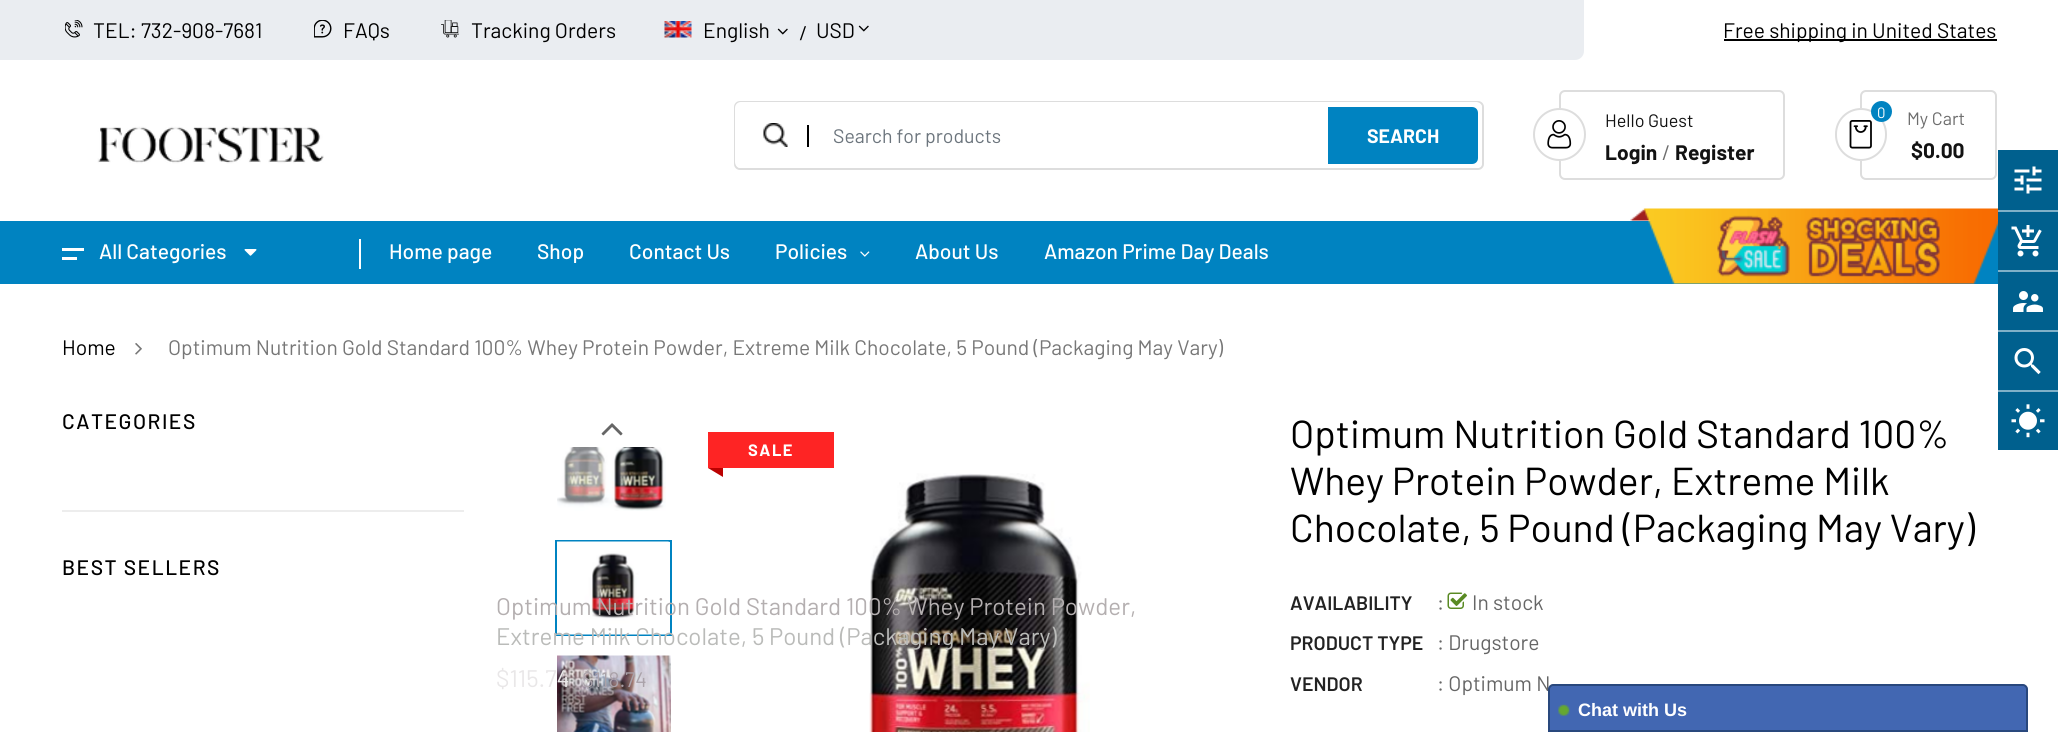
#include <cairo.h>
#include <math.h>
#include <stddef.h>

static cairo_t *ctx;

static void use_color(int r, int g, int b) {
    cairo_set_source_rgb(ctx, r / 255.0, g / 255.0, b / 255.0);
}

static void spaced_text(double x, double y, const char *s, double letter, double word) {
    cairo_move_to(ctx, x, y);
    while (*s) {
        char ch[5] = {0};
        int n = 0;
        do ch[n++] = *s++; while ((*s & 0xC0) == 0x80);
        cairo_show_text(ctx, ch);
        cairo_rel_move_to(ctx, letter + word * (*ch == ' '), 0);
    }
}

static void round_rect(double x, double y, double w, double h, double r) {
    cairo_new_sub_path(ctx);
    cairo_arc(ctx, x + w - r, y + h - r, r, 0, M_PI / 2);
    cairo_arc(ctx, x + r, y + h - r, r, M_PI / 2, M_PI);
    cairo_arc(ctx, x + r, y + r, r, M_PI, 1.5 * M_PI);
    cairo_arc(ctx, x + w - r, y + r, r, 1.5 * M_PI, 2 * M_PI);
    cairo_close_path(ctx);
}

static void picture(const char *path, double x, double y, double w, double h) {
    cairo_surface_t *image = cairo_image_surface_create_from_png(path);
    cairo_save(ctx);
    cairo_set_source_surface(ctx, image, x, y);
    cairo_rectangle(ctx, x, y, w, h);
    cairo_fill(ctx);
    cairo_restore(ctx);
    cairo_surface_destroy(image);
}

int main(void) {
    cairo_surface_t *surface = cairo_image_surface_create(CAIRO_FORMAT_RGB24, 2058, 732);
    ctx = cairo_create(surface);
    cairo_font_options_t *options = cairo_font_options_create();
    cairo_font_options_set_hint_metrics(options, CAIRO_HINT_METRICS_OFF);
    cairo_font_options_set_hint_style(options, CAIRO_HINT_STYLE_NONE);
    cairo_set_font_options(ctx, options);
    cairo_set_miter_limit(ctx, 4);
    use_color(255, 255, 255);
    cairo_paint(ctx);
    use_color(234, 237, 241);
    cairo_new_path(ctx);
    cairo_move_to(ctx, 0, 0);
    cairo_line_to(ctx, 1584, 0);
    cairo_line_to(ctx, 1584, 51);
    cairo_curve_to(ctx, 1584, 56, 1580, 60, 1575, 60);
    cairo_line_to(ctx, 0, 60);
    cairo_close_path(ctx);
    cairo_fill(ctx);
    picture("img1.png", 65, 20, 18, 18);
    cairo_select_font_face(ctx, "Barlow", CAIRO_FONT_SLANT_NORMAL, CAIRO_FONT_WEIGHT_NORMAL);
    cairo_set_font_size(ctx, 21);
    use_color(0, 0, 0);
    cairo_move_to(ctx, 93, 38);
    cairo_show_text(ctx, "TEL: 732-908-7681");
    picture("img2.png", 314, 20, 18, 18);
    cairo_move_to(ctx, 343, 38);
    cairo_show_text(ctx, "FAQs");
    picture("img3.png", 441, 20, 18, 18);
    cairo_move_to(ctx, 471, 38);
    cairo_show_text(ctx, "Tracking Orders");
    picture("img4.png", 664, 21, 28, 17);
    cairo_move_to(ctx, 703, 38);
    cairo_show_text(ctx, "English");
    picture("img5.png", 777, 28, 11, 7);
    cairo_select_font_face(ctx, "Liberation Serif", CAIRO_FONT_SLANT_NORMAL, CAIRO_FONT_WEIGHT_BOLD);
    cairo_move_to(ctx, 800, 40);
    cairo_show_text(ctx, "/");
    cairo_select_font_face(ctx, "Barlow", CAIRO_FONT_SLANT_NORMAL, CAIRO_FONT_WEIGHT_NORMAL);
    cairo_move_to(ctx, 816, 38);
    cairo_show_text(ctx, "USD");
    picture("img5.png", 858, 25, 11, 7);
    cairo_rectangle(ctx, 1724, 39, 273, 2);
    cairo_fill(ctx);
    cairo_move_to(ctx, 1723, 38);
    cairo_show_text(ctx, "Free shipping in United States");
    picture("img6.png", 97, 126, 227, 38);
    round_rect(735, 102, 748, 67, 5);
    use_color(221, 221, 221);
    cairo_stroke(ctx);
    use_color(255, 255, 255);
    round_rect(735, 102, 747, 66, 6);
    cairo_fill(ctx);
    picture("img7.png", 763, 123, 25, 24);
    use_color(0, 0, 0);
    cairo_rectangle(ctx, 807, 125, 2, 22);
    cairo_fill(ctx);
    cairo_set_font_size(ctx, 19.5);
    use_color(108, 117, 125);
    cairo_move_to(ctx, 833, 143);
    cairo_show_text(ctx, "Search for products");
    use_color(0, 131, 193);
    cairo_new_path(ctx);
    cairo_move_to(ctx, 1328, 107);
    cairo_line_to(ctx, 1472, 107);
    cairo_curve_to(ctx, 1475.5, 107, 1478, 109.5, 1478, 113);
    cairo_line_to(ctx, 1478, 158);
    cairo_curve_to(ctx, 1478, 161.5, 1475.5, 164, 1472, 164);
    cairo_line_to(ctx, 1328, 164);
    cairo_close_path(ctx);
    cairo_fill(ctx);
    cairo_select_font_face(ctx, "Barlow", CAIRO_FONT_SLANT_NORMAL, CAIRO_FONT_WEIGHT_BOLD);
    use_color(255, 255, 255);
    cairo_move_to(ctx, 1367, 143);
    cairo_show_text(ctx, "SEARCH");
    round_rect(1560, 91, 224, 88, 5);
    use_color(221, 221, 221);
    cairo_stroke(ctx);
    use_color(255, 255, 255);
    cairo_arc(ctx, 1559.5, 134.5, 26.5, 0, 2 * M_PI);
    cairo_fill(ctx);
    picture("img8.png", 1547, 120, 25, 29);
    cairo_arc(ctx, 1559.5, 134.5, 25.5, 0, 2 * M_PI);
    use_color(221, 221, 221);
    cairo_stroke(ctx);
    cairo_select_font_face(ctx, "Barlow", CAIRO_FONT_SLANT_NORMAL, CAIRO_FONT_WEIGHT_NORMAL);
    cairo_set_font_size(ctx, 18);
    use_color(18, 18, 18);
    cairo_move_to(ctx, 1605, 127);
    cairo_show_text(ctx, "Hello Guest");
    cairo_select_font_face(ctx, "Barlow", CAIRO_FONT_SLANT_NORMAL, CAIRO_FONT_WEIGHT_BOLD);
    cairo_set_font_size(ctx, 21);
    cairo_move_to(ctx, 1605, 160);
    cairo_show_text(ctx, "Login");
    cairo_select_font_face(ctx, "Barlow", CAIRO_FONT_SLANT_NORMAL, CAIRO_FONT_WEIGHT_NORMAL);
    use_color(109, 109, 109);
    cairo_move_to(ctx, 1662, 160);
    cairo_show_text(ctx, "/");
    cairo_select_font_face(ctx, "Barlow", CAIRO_FONT_SLANT_NORMAL, CAIRO_FONT_WEIGHT_BOLD);
    use_color(18, 18, 18);
    cairo_move_to(ctx, 1675, 160);
    cairo_show_text(ctx, "Register");
    round_rect(1861, 91, 135, 88, 5);
    use_color(221, 221, 221);
    cairo_stroke(ctx);
    use_color(255, 255, 255);
    round_rect(1835, 108, 52, 53, 26);
    cairo_fill(ctx);
    picture("img9.png", 1849, 120, 23, 29);
    round_rect(1836, 109, 50, 51, 25);
    use_color(221, 221, 221);
    cairo_stroke(ctx);
    use_color(0, 131, 193);
    cairo_arc(ctx, 1881.5, 111.5, 10.5, 0, 2 * M_PI);
    cairo_fill(ctx);
    cairo_select_font_face(ctx, "Barlow", CAIRO_FONT_SLANT_NORMAL, CAIRO_FONT_WEIGHT_NORMAL);
    cairo_set_font_size(ctx, 15);
    use_color(255, 255, 255);
    cairo_move_to(ctx, 1877, 118);
    cairo_show_text(ctx, "0");
    cairo_set_font_size(ctx, 18);
    use_color(109, 109, 109);
    cairo_move_to(ctx, 1907, 125);
    cairo_show_text(ctx, "My Cart");
    cairo_select_font_face(ctx, "Barlow", CAIRO_FONT_SLANT_NORMAL, CAIRO_FONT_WEIGHT_BOLD);
    cairo_set_font_size(ctx, 21);
    use_color(18, 18, 18);
    cairo_move_to(ctx, 1911, 158);
    cairo_show_text(ctx, "$0.00");
    use_color(0, 131, 193);
    cairo_rectangle(ctx, 0, 221, 1998, 63);
    cairo_fill(ctx);
    use_color(255, 255, 255);
    cairo_rectangle(ctx, 62, 248, 22, 3);
    cairo_fill(ctx);
    cairo_select_font_face(ctx, "Barlow Medium", CAIRO_FONT_SLANT_NORMAL, CAIRO_FONT_WEIGHT_NORMAL);
    cairo_move_to(ctx, 99, 259);
    cairo_show_text(ctx, "All Categories");
    cairo_rectangle(ctx, 62, 257, 15, 3);
    cairo_fill(ctx);
    picture("img10.png", 244, 249, 13, 7);
    cairo_rectangle(ctx, 359, 239, 2, 30);
    cairo_fill(ctx);
    cairo_move_to(ctx, 389, 259);
    cairo_show_text(ctx, "Home page");
    cairo_move_to(ctx, 537, 259);
    cairo_show_text(ctx, "Shop");
    cairo_move_to(ctx, 629, 259);
    cairo_show_text(ctx, "Contact Us");
    cairo_move_to(ctx, 775, 259);
    cairo_show_text(ctx, "Policies");
    picture("img11.png", 860, 251, 10, 6);
    cairo_move_to(ctx, 915, 259);
    cairo_show_text(ctx, "About Us");
    cairo_move_to(ctx, 1044, 259);
    cairo_show_text(ctx, "Amazon Prime Day Deals");
    picture("img12.png", 1630, 208, 368, 76);
    use_color(0, 96, 142);
    cairo_rectangle(ctx, 1998, 150, 60, 60);
    cairo_fill(ctx);
    picture("img13.png", 2014, 166, 28, 28);
    cairo_rectangle(ctx, 1998, 212, 60, 58);
    cairo_fill(ctx);
    use_color(128, 176, 199);
    cairo_rectangle(ctx, 1998, 210, 60, 2);
    cairo_fill(ctx);
    picture("img14.png", 2011, 225, 31, 32);
    use_color(0, 96, 142);
    cairo_rectangle(ctx, 1998, 272, 60, 58);
    cairo_fill(ctx);
    use_color(128, 176, 199);
    cairo_rectangle(ctx, 1998, 270, 60, 2);
    cairo_fill(ctx);
    picture("img15.png", 2013, 291, 30, 21);
    use_color(0, 96, 142);
    cairo_rectangle(ctx, 1998, 332, 60, 58);
    cairo_fill(ctx);
    use_color(128, 176, 199);
    cairo_rectangle(ctx, 1998, 330, 60, 2);
    cairo_fill(ctx);
    picture("img16.png", 2014, 348, 27, 27);
    use_color(0, 96, 142);
    cairo_rectangle(ctx, 1998, 392, 60, 58);
    cairo_fill(ctx);
    use_color(128, 176, 199);
    cairo_rectangle(ctx, 1998, 390, 60, 2);
    cairo_fill(ctx);
    picture("img17.png", 2011, 404, 34, 34);
    cairo_select_font_face(ctx, "Barlow", CAIRO_FONT_SLANT_NORMAL, CAIRO_FONT_WEIGHT_NORMAL);
    use_color(0, 0, 0);
    cairo_move_to(ctx, 62, 355);
    cairo_show_text(ctx, "Home");
    picture("img18.png", 135, 343, 7, 12);
    use_color(119, 119, 119);
    cairo_move_to(ctx, 168, 355);
    cairo_show_text(ctx, "Optimum Nutrition Gold Standard 100% Whey Protein Powder, Extreme Milk Chocolate, 5 Pound (Packaging May Vary)");
    use_color(237, 237, 237);
    cairo_rectangle(ctx, 62, 510, 402, 2);
    cairo_fill(ctx);
    cairo_select_font_face(ctx, "Barlow Medium", CAIRO_FONT_SLANT_NORMAL, CAIRO_FONT_WEIGHT_NORMAL);
    use_color(0, 0, 0);
    spaced_text(62, 429, "CATEGORIES", 1.5, 0);
    spaced_text(62, 575, "BEST SELLERS", 1.5, 0);
    picture("img19.png", 601, 423, 22, 13);
    picture("img20.png", 557, 447, 109, 64);
    cairo_rectangle(ctx, 556, 541, 115, 94);
    use_color(0, 131, 193);
    cairo_stroke(ctx);
    picture("img21.png", 557, 541, 113, 94);
    picture("img22.png", 557, 655, 114, 77);
    use_color(254, 36, 36);
    cairo_rectangle(ctx, 708, 432, 126, 36);
    cairo_fill(ctx);
    cairo_select_font_face(ctx, "Barlow", CAIRO_FONT_SLANT_NORMAL, CAIRO_FONT_WEIGHT_BOLD);
    cairo_set_font_size(ctx, 16.5);
    use_color(255, 255, 255);
    spaced_text(748, 456, "SALE", 1.5, 0);
    use_color(187, 1, 1);
    cairo_new_path(ctx);
    cairo_move_to(ctx, 708, 468);
    cairo_line_to(ctx, 723, 468);
    cairo_line_to(ctx, 723, 477);
    cairo_close_path(ctx);
    cairo_fill(ctx);
    picture("img23.png", 869, 473, 221, 259);
    cairo_select_font_face(ctx, "Barlow", CAIRO_FONT_SLANT_NORMAL, CAIRO_FONT_WEIGHT_NORMAL);
    cairo_set_font_size(ctx, 39);
    use_color(0, 0, 0);
    cairo_move_to(ctx, 1290, 448);
    cairo_show_text(ctx, "Optimum Nutrition Gold Standard 100%");
    cairo_move_to(ctx, 1290, 495);
    cairo_show_text(ctx, "Whey Protein Powder, Extreme Milk");
    cairo_move_to(ctx, 1290, 542);
    cairo_show_text(ctx, "Chocolate, 5 Pound (Packaging May Vary)");
    cairo_select_font_face(ctx, "Barlow SemiBold", CAIRO_FONT_SLANT_NORMAL, CAIRO_FONT_WEIGHT_NORMAL);
    cairo_set_font_size(ctx, 19.5);
    use_color(34, 34, 34);
    cairo_move_to(ctx, 1290, 610);
    cairo_show_text(ctx, "AVAILABILITY");
    cairo_select_font_face(ctx, "Barlow", CAIRO_FONT_SLANT_NORMAL, CAIRO_FONT_WEIGHT_NORMAL);
    cairo_set_font_size(ctx, 21);
    use_color(102, 102, 102);
    cairo_move_to(ctx, 1437, 610);
    cairo_show_text(ctx, ":");
    picture("img24.png", 1447, 592, 20, 17);
    cairo_move_to(ctx, 1472, 610);
    cairo_show_text(ctx, "In stock");
    cairo_select_font_face(ctx, "Barlow SemiBold", CAIRO_FONT_SLANT_NORMAL, CAIRO_FONT_WEIGHT_NORMAL);
    cairo_set_font_size(ctx, 19.5);
    use_color(34, 34, 34);
    cairo_move_to(ctx, 1290, 650);
    cairo_show_text(ctx, "PRODUCT TYPE");
    cairo_select_font_face(ctx, "Barlow", CAIRO_FONT_SLANT_NORMAL, CAIRO_FONT_WEIGHT_NORMAL);
    cairo_set_font_size(ctx, 21);
    use_color(102, 102, 102);
    cairo_move_to(ctx, 1437, 650);
    cairo_show_text(ctx, ": Drugstore");
    cairo_select_font_face(ctx, "Barlow SemiBold", CAIRO_FONT_SLANT_NORMAL, CAIRO_FONT_WEIGHT_NORMAL);
    cairo_set_font_size(ctx, 19.5);
    use_color(34, 34, 34);
    cairo_move_to(ctx, 1290, 691);
    cairo_show_text(ctx, "VENDOR");
    cairo_select_font_face(ctx, "Barlow", CAIRO_FONT_SLANT_NORMAL, CAIRO_FONT_WEIGHT_NORMAL);
    cairo_set_font_size(ctx, 21);
    use_color(102, 102, 102);
    cairo_move_to(ctx, 1437, 691);
    cairo_show_text(ctx, ": Optimum N");
    cairo_set_font_size(ctx, 24);
    use_color(180, 175, 176);
    cairo_move_to(ctx, 496, 615);
    cairo_show_text(ctx, "Optimum Nutrition Gold Standard 100% Whey Protein Powder,");
    use_color(186, 187, 185);
    cairo_move_to(ctx, 496, 645);
    cairo_show_text(ctx, "Extreme Milk Chocolate, 5 Pound (Packaging May Vary)");
    use_color(233, 231, 232);
    cairo_move_to(ctx, 496, 687);
    cairo_show_text(ctx, "$115.74");
    cairo_set_font_size(ctx, 21);
    use_color(170, 162, 169);
    cairo_move_to(ctx, 582, 687);
    cairo_show_text(ctx, "$118.74");
    use_color(66, 103, 178);
    cairo_new_path(ctx);
    cairo_move_to(ctx, 1553, 685);
    cairo_line_to(ctx, 2023, 685);
    cairo_curve_to(ctx, 2025, 685, 2027, 687, 2027, 689);
    cairo_line_to(ctx, 2027, 731);
    cairo_line_to(ctx, 1549, 731);
    cairo_line_to(ctx, 1549, 689);
    cairo_curve_to(ctx, 1549, 687, 1551, 685, 1553, 685);
    cairo_close_path(ctx);
    cairo_fill_preserve(ctx);
    use_color(41, 72, 125);
    cairo_stroke(ctx);
    picture("img25.png", 1558, 704, 12, 12);
    cairo_select_font_face(ctx, "Liberation Sans", CAIRO_FONT_SLANT_NORMAL, CAIRO_FONT_WEIGHT_BOLD);
    cairo_set_font_size(ctx, 18);
    use_color(255, 255, 255);
    cairo_move_to(ctx, 1578, 716);
    cairo_show_text(ctx, "Chat with Us");
    cairo_surface_write_to_png(surface, "result.png");
    cairo_font_options_destroy(options);
    cairo_destroy(ctx);
    cairo_surface_destroy(surface);
    return 0;
}
